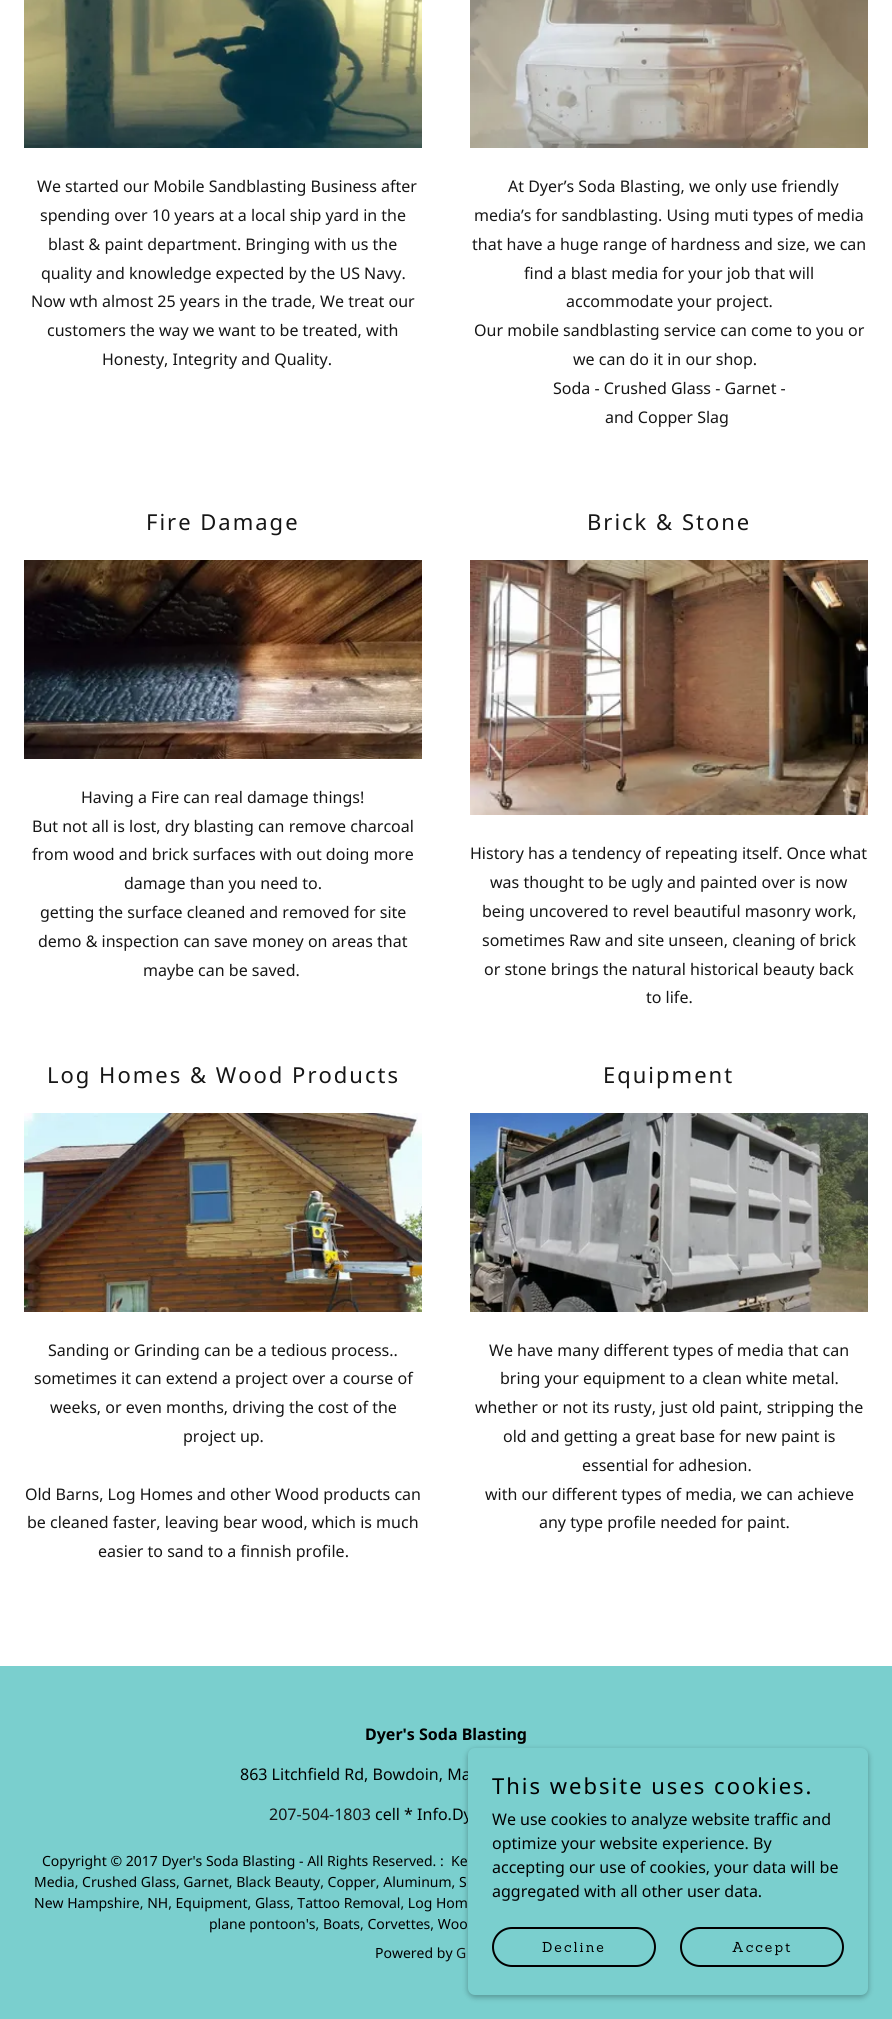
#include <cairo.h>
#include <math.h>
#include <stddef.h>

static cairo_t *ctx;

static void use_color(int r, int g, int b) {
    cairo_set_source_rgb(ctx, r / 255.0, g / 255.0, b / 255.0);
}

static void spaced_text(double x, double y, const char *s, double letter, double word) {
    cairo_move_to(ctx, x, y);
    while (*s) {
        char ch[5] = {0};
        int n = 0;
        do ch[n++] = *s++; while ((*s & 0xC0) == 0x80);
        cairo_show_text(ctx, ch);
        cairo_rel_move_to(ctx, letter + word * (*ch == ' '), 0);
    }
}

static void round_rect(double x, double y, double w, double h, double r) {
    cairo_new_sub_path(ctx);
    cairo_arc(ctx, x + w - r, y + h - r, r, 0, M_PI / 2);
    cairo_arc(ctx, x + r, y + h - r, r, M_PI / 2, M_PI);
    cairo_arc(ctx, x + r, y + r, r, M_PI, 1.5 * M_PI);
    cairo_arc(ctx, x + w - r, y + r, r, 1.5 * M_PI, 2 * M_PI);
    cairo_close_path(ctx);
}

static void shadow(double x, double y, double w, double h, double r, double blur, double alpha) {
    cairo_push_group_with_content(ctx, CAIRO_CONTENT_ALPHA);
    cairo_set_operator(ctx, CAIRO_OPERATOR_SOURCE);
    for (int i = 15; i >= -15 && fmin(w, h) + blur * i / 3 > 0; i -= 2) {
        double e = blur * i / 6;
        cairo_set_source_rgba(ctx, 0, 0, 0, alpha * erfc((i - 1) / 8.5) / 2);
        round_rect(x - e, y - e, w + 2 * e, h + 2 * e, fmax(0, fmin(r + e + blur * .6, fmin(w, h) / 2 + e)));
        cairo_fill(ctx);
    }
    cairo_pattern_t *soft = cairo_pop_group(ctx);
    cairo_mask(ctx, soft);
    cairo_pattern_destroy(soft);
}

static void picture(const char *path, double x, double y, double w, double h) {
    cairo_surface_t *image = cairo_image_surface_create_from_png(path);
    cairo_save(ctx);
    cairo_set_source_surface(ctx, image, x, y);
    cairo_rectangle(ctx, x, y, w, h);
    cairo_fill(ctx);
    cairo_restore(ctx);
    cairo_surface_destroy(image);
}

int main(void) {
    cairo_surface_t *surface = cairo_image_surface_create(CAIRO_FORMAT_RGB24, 892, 2019);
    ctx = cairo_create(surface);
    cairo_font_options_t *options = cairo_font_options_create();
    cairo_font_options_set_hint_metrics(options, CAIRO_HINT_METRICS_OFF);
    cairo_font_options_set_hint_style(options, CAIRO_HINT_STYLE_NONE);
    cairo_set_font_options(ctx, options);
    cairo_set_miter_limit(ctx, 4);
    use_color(122, 207, 206);
    cairo_paint(ctx);
    use_color(255, 255, 255);
    cairo_rectangle(ctx, 0, 0, 892, 1666);
    cairo_fill(ctx);
    picture("img1.png", 24, 0, 398, 148);
    cairo_select_font_face(ctx, "Noto Sans", CAIRO_FONT_SLANT_NORMAL, CAIRO_FONT_WEIGHT_NORMAL);
    cairo_set_font_size(ctx, 16);
    use_color(22, 22, 22);
    cairo_move_to(ctx, 37, 192);
    cairo_show_text(ctx, "We started our Mobile Sandblasting Business after");
    cairo_move_to(ctx, 40, 221);
    cairo_show_text(ctx, "spending over 10 years at a local ship yard in the");
    cairo_move_to(ctx, 48, 250);
    cairo_show_text(ctx, "blast & paint department. Bringing with us the");
    cairo_move_to(ctx, 41, 279);
    cairo_show_text(ctx, "quality and knowledge expected by the US Navy.");
    cairo_move_to(ctx, 31, 307);
    cairo_show_text(ctx, "Now wth almost 25 years in the trade, We treat our");
    cairo_move_to(ctx, 47, 336);
    cairo_show_text(ctx, "customers the way we want to be treated, with");
    cairo_move_to(ctx, 102, 365);
    cairo_show_text(ctx, "Honesty, Integrity and Quality.");
    picture("img2.png", 470, 0, 398, 148);
    cairo_move_to(ctx, 508, 192);
    cairo_show_text(ctx, "At Dyer’s Soda Blasting, we only use friendly");
    cairo_move_to(ctx, 474, 221);
    cairo_show_text(ctx, "media’s for sandblasting. Using muti types of media");
    cairo_move_to(ctx, 472, 250);
    cairo_show_text(ctx, "that have a huge range of hardness and size, we can");
    cairo_move_to(ctx, 524, 279);
    cairo_show_text(ctx, "find a blast media for your job that will");
    cairo_move_to(ctx, 566, 307);
    cairo_show_text(ctx, "accommodate your project.");
    cairo_move_to(ctx, 474, 336);
    cairo_show_text(ctx, "Our mobile sandblasting service can come to you or");
    cairo_move_to(ctx, 573, 365);
    cairo_show_text(ctx, "we can do it in our shop.");
    cairo_move_to(ctx, 553, 394);
    cairo_show_text(ctx, "Soda - Crushed Glass - Garnet -");
    cairo_move_to(ctx, 605, 423);
    cairo_show_text(ctx, "and Copper Slag");
    cairo_set_font_size(ctx, 22);
    spaced_text(146, 530, "Fire Damage", 2, 0);
    picture("img3.png", 24, 560, 398, 199);
    cairo_set_font_size(ctx, 16);
    cairo_move_to(ctx, 81, 803);
    cairo_show_text(ctx, "Having a Fire can real damage things!");
    cairo_move_to(ctx, 32, 832);
    cairo_show_text(ctx, "But not all is lost, dry blasting can remove charcoal");
    cairo_move_to(ctx, 32, 860);
    cairo_show_text(ctx, "from wood and brick surfaces with out doing more");
    cairo_move_to(ctx, 124, 889);
    cairo_show_text(ctx, "damage than you need to.");
    cairo_move_to(ctx, 40, 918);
    cairo_show_text(ctx, "getting the surface cleaned and removed for site");
    cairo_move_to(ctx, 38, 947);
    cairo_show_text(ctx, "demo & inspection can save money on areas that");
    cairo_move_to(ctx, 143, 976);
    cairo_show_text(ctx, "maybe can be saved.");
    cairo_set_font_size(ctx, 22);
    spaced_text(587, 530, "Brick & Stone", 2, 0);
    picture("img4.png", 470, 560, 398, 255);
    cairo_set_font_size(ctx, 16);
    cairo_move_to(ctx, 470, 859);
    cairo_show_text(ctx, "History has a tendency of repeating itself. Once what");
    cairo_move_to(ctx, 490, 888);
    cairo_show_text(ctx, "was thought to be ugly and painted over is now");
    cairo_move_to(ctx, 482, 917);
    cairo_show_text(ctx, "being uncovered to revel beautiful masonry work,");
    cairo_move_to(ctx, 482, 946);
    cairo_show_text(ctx, "sometimes Raw and site unseen, cleaning of brick");
    cairo_move_to(ctx, 484, 975);
    cairo_show_text(ctx, "or stone brings the natural historical beauty back");
    cairo_move_to(ctx, 646, 1003);
    cairo_show_text(ctx, "to life.");
    cairo_set_font_size(ctx, 22);
    spaced_text(47, 1083, "Log Homes & Wood Products", 2, 0);
    picture("img5.png", 24, 1113, 398, 199);
    cairo_set_font_size(ctx, 16);
    cairo_move_to(ctx, 48, 1356);
    cairo_show_text(ctx, "Sanding or Grinding can be a tedious process..");
    cairo_move_to(ctx, 34, 1384);
    cairo_show_text(ctx, "sometimes it can extend a project over a course of");
    cairo_move_to(ctx, 50, 1413);
    cairo_show_text(ctx, "weeks, or even months, driving the cost of the");
    cairo_move_to(ctx, 183, 1442);
    cairo_show_text(ctx, "project up.");
    cairo_move_to(ctx, 25, 1500);
    cairo_show_text(ctx, "Old Barns, Log Homes and other Wood products can");
    cairo_move_to(ctx, 27, 1528);
    cairo_show_text(ctx, "be cleaned faster, leaving bear wood, which is much");
    cairo_move_to(ctx, 98, 1557);
    cairo_show_text(ctx, "easier to sand to a finnish profile.");
    cairo_set_font_size(ctx, 22);
    spaced_text(603, 1083, "Equipment", 2, 0);
    picture("img6.png", 470, 1113, 398, 199);
    cairo_set_font_size(ctx, 16);
    cairo_move_to(ctx, 489, 1356);
    cairo_show_text(ctx, "We have many different types of media that can");
    cairo_move_to(ctx, 500, 1384);
    cairo_show_text(ctx, "bring your equipment to a clean white metal.");
    cairo_move_to(ctx, 475, 1413);
    cairo_show_text(ctx, "whether or not its rusty, just old paint, stripping the");
    cairo_move_to(ctx, 503, 1442);
    cairo_show_text(ctx, "old and getting a great base for new paint is");
    cairo_move_to(ctx, 582, 1471);
    cairo_show_text(ctx, "essential for adhesion.");
    cairo_move_to(ctx, 485, 1500);
    cairo_show_text(ctx, "with our different types of media, we can achieve");
    cairo_move_to(ctx, 539, 1528);
    cairo_show_text(ctx, "any type profile needed for paint.");
    cairo_select_font_face(ctx, "Noto Sans", CAIRO_FONT_SLANT_NORMAL, CAIRO_FONT_WEIGHT_BOLD);
    use_color(0, 0, 0);
    cairo_move_to(ctx, 365, 1740);
    cairo_show_text(ctx, "Dyer's Soda Blasting");
    cairo_select_font_face(ctx, "Noto Sans", CAIRO_FONT_SLANT_NORMAL, CAIRO_FONT_WEIGHT_NORMAL);
    cairo_move_to(ctx, 240, 1780);
    cairo_show_text(ctx, "863 Litchfield Rd, Bowdoin, Ma");
    use_color(22, 22, 22);
    cairo_move_to(ctx, 269, 1820);
    cairo_show_text(ctx, "207-504-1803");
    use_color(0, 0, 0);
    cairo_move_to(ctx, 375, 1820);
    cairo_show_text(ctx, "cell * Info.Dy");
    cairo_set_font_size(ctx, 14);
    cairo_move_to(ctx, 42, 1866);
    cairo_show_text(ctx, "Copyright © 2017 Dyer's Soda Blasting - All Rights Reserved. :  Ke");
    cairo_move_to(ctx, 34, 1887);
    cairo_show_text(ctx, "Media, Crushed Glass, Garnet, Black Beauty, Copper, Aluminum, S");
    cairo_move_to(ctx, 34, 1908);
    cairo_show_text(ctx, "New Hampshire, NH, Equipment, Glass, Tattoo Removal, Log Hom");
    cairo_move_to(ctx, 209, 1929);
    cairo_show_text(ctx, "plane pontoon's, Boats, Corvettes, Woo");
    cairo_move_to(ctx, 375, 1958);
    cairo_show_text(ctx, "Powered by");
    use_color(22, 22, 22);
    cairo_move_to(ctx, 456, 1958);
    cairo_show_text(ctx, "G");
    use_color(0, 0, 0);
    shadow(468, 1750, 400, 247, 7, 3, 0.3);
    use_color(122, 207, 206);
    round_rect(468, 1748, 400, 247, 7);
    cairo_fill(ctx);
    cairo_set_font_size(ctx, 22);
    use_color(0, 0, 0);
    spaced_text(492, 1794, "This website uses cookies.", 2, 0);
    cairo_set_font_size(ctx, 16);
    cairo_move_to(ctx, 492, 1825);
    cairo_show_text(ctx, "We use cookies to analyze website traffic and");
    cairo_move_to(ctx, 492, 1849);
    cairo_show_text(ctx, "optimize your website experience. By");
    cairo_move_to(ctx, 492, 1873);
    cairo_show_text(ctx, "accepting our use of cookies, your data will be");
    cairo_move_to(ctx, 492, 1897);
    cairo_show_text(ctx, "aggregated with all other user data.");
    round_rect(493, 1928, 162, 38, 19);
    cairo_stroke(ctx);
    cairo_select_font_face(ctx, "Sanchez", CAIRO_FONT_SLANT_NORMAL, CAIRO_FONT_WEIGHT_NORMAL);
    cairo_set_font_size(ctx, 14);
    spaced_text(542, 1952, "Decline", 2, 0);
    round_rect(681, 1928, 162, 38, 19);
    cairo_stroke(ctx);
    spaced_text(732, 1952, "Accept", 2, 0);
    cairo_surface_write_to_png(surface, "result.png");
    cairo_font_options_destroy(options);
    cairo_destroy(ctx);
    cairo_surface_destroy(surface);
    return 0;
}
